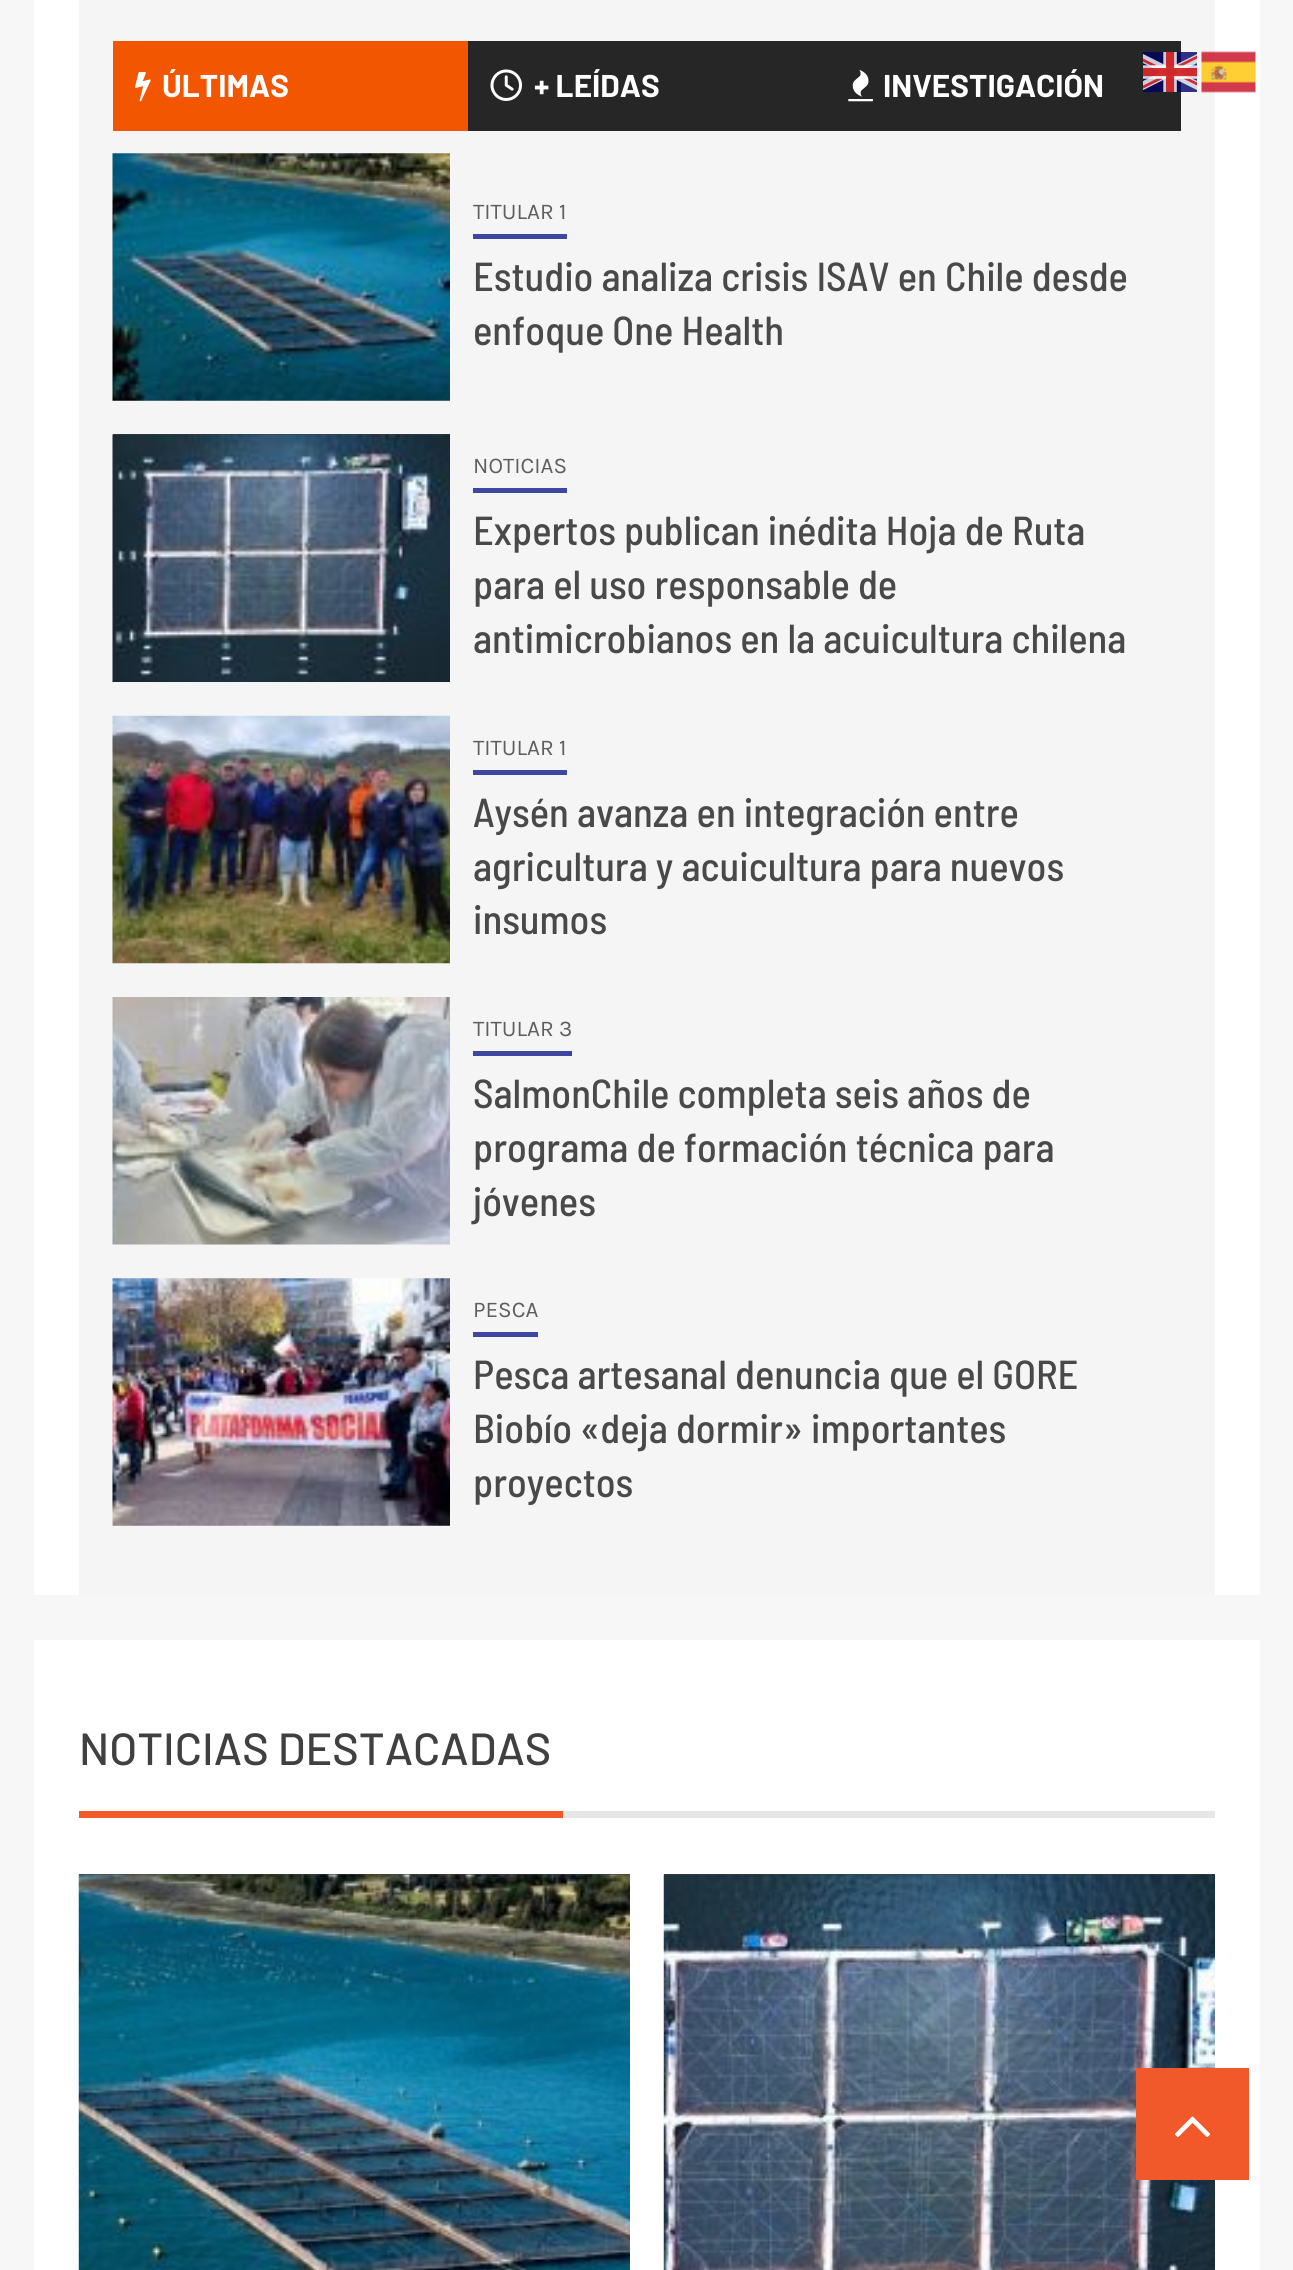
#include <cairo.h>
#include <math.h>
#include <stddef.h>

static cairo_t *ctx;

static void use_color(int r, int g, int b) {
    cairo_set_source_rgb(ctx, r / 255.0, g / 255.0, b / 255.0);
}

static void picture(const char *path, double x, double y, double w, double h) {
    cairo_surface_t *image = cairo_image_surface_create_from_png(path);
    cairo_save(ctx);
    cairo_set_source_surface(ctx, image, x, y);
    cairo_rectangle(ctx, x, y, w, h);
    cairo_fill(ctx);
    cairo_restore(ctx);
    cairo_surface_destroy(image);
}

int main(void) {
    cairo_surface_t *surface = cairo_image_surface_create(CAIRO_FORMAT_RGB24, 1293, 2270);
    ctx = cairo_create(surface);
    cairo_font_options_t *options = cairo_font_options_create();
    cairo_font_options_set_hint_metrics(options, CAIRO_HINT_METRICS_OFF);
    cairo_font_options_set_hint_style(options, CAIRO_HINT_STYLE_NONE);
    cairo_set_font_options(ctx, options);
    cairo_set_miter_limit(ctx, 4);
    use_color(247, 247, 247);
    cairo_paint(ctx);
    use_color(255, 255, 255);
    cairo_rectangle(ctx, 34, 0, 1226, 1595);
    cairo_fill(ctx);
    use_color(245, 245, 245);
    cairo_rectangle(ctx, 79, 0, 1136, 1595);
    cairo_fill(ctx);
    use_color(242, 86, 0);
    cairo_rectangle(ctx, 113, 41, 355, 90);
    cairo_fill(ctx);
    picture("img1.png", 135, 72, 16, 30);
    cairo_select_font_face(ctx, "Barlow", CAIRO_FONT_SLANT_NORMAL, CAIRO_FONT_WEIGHT_BOLD);
    cairo_set_font_size(ctx, 31.5);
    use_color(255, 255, 255);
    cairo_move_to(ctx, 162, 97);
    cairo_show_text(ctx, "ÚLTIMAS");
    use_color(38, 38, 38);
    cairo_rectangle(ctx, 468, 41, 713, 90);
    cairo_fill(ctx);
    picture("img2.png", 490, 69, 32, 32);
    use_color(255, 255, 255);
    cairo_move_to(ctx, 534, 97);
    cairo_show_text(ctx, "+ LEÍDAS");
    picture("img3.png", 848, 69, 25, 33);
    cairo_move_to(ctx, 883, 97);
    cairo_show_text(ctx, "INVESTIGACIÓN");
    picture("img4.png", 112, 153, 338, 248);
    use_color(61, 70, 160);
    cairo_rectangle(ctx, 473, 234, 94, 5);
    cairo_fill(ctx);
    cairo_select_font_face(ctx, "Karla", CAIRO_FONT_SLANT_NORMAL, CAIRO_FONT_WEIGHT_NORMAL);
    cairo_set_font_size(ctx, 22.5);
    use_color(94, 94, 94);
    cairo_move_to(ctx, 473, 219);
    cairo_show_text(ctx, "TITULAR 1");
    cairo_select_font_face(ctx, "Barlow Semi Condensed Medium", CAIRO_FONT_SLANT_NORMAL, CAIRO_FONT_WEIGHT_NORMAL);
    cairo_set_font_size(ctx, 40.5);
    use_color(73, 73, 73);
    cairo_move_to(ctx, 473, 291);
    cairo_show_text(ctx, "Estudio analiza crisis ISAV en Chile desde");
    cairo_move_to(ctx, 473, 345);
    cairo_show_text(ctx, "enfoque One Health");
    use_color(64, 64, 64);
    cairo_rectangle(ctx, 113, 434, 337, 1);
    cairo_fill(ctx);
    picture("img5.png", 112, 434, 338, 248);
    use_color(61, 70, 160);
    cairo_rectangle(ctx, 473, 488, 94, 5);
    cairo_fill(ctx);
    cairo_select_font_face(ctx, "Karla", CAIRO_FONT_SLANT_NORMAL, CAIRO_FONT_WEIGHT_NORMAL);
    cairo_set_font_size(ctx, 22.5);
    use_color(94, 94, 94);
    cairo_move_to(ctx, 473, 473);
    cairo_show_text(ctx, "NOTICIAS");
    cairo_select_font_face(ctx, "Barlow Semi Condensed Medium", CAIRO_FONT_SLANT_NORMAL, CAIRO_FONT_WEIGHT_NORMAL);
    cairo_set_font_size(ctx, 40.5);
    use_color(73, 73, 73);
    cairo_move_to(ctx, 473, 545);
    cairo_show_text(ctx, "Expertos publican inédita Hoja de Ruta");
    cairo_move_to(ctx, 473, 599);
    cairo_show_text(ctx, "para el uso responsable de");
    cairo_move_to(ctx, 473, 653);
    cairo_show_text(ctx, "antimicrobianos en la acuicultura chilena");
    picture("img6.png", 112, 715, 338, 249);
    use_color(61, 70, 160);
    cairo_rectangle(ctx, 473, 770, 94, 5);
    cairo_fill(ctx);
    cairo_select_font_face(ctx, "Karla", CAIRO_FONT_SLANT_NORMAL, CAIRO_FONT_WEIGHT_NORMAL);
    cairo_set_font_size(ctx, 22.5);
    use_color(94, 94, 94);
    cairo_move_to(ctx, 473, 755);
    cairo_show_text(ctx, "TITULAR 1");
    cairo_select_font_face(ctx, "Barlow Semi Condensed Medium", CAIRO_FONT_SLANT_NORMAL, CAIRO_FONT_WEIGHT_NORMAL);
    cairo_set_font_size(ctx, 40.5);
    use_color(73, 73, 73);
    cairo_move_to(ctx, 473, 827);
    cairo_show_text(ctx, "Aysén avanza en integración entre");
    cairo_move_to(ctx, 473, 881);
    cairo_show_text(ctx, "agricultura y acuicultura para nuevos");
    cairo_move_to(ctx, 473, 934);
    cairo_show_text(ctx, "insumos");
    picture("img7.png", 112, 997, 338, 248);
    use_color(61, 70, 160);
    cairo_rectangle(ctx, 473, 1051, 99, 5);
    cairo_fill(ctx);
    cairo_select_font_face(ctx, "Karla", CAIRO_FONT_SLANT_NORMAL, CAIRO_FONT_WEIGHT_NORMAL);
    cairo_set_font_size(ctx, 22.5);
    use_color(94, 94, 94);
    cairo_move_to(ctx, 473, 1036);
    cairo_show_text(ctx, "TITULAR 3");
    cairo_select_font_face(ctx, "Barlow Semi Condensed Medium", CAIRO_FONT_SLANT_NORMAL, CAIRO_FONT_WEIGHT_NORMAL);
    cairo_set_font_size(ctx, 40.5);
    use_color(73, 73, 73);
    cairo_move_to(ctx, 473, 1108);
    cairo_show_text(ctx, "SalmonChile completa seis años de");
    cairo_move_to(ctx, 473, 1162);
    cairo_show_text(ctx, "programa de formación técnica para");
    cairo_move_to(ctx, 473, 1216);
    cairo_show_text(ctx, "jóvenes");
    picture("img8.png", 112, 1278, 338, 248);
    use_color(61, 70, 160);
    cairo_rectangle(ctx, 473, 1332, 65, 5);
    cairo_fill(ctx);
    cairo_select_font_face(ctx, "Karla", CAIRO_FONT_SLANT_NORMAL, CAIRO_FONT_WEIGHT_NORMAL);
    cairo_set_font_size(ctx, 22.5);
    use_color(94, 94, 94);
    cairo_move_to(ctx, 473, 1317);
    cairo_show_text(ctx, "PESCA");
    cairo_select_font_face(ctx, "Barlow Semi Condensed Medium", CAIRO_FONT_SLANT_NORMAL, CAIRO_FONT_WEIGHT_NORMAL);
    cairo_set_font_size(ctx, 40.5);
    use_color(73, 73, 73);
    cairo_move_to(ctx, 473, 1389);
    cairo_show_text(ctx, "Pesca artesanal denuncia que el GORE");
    cairo_move_to(ctx, 473, 1443);
    cairo_show_text(ctx, "Biobío «deja dormir» importantes");
    cairo_move_to(ctx, 473, 1497);
    cairo_show_text(ctx, "proyectos");
    use_color(255, 255, 255);
    cairo_rectangle(ctx, 34, 1640, 1226, 630);
    cairo_fill(ctx);
    cairo_select_font_face(ctx, "Barlow Medium", CAIRO_FONT_SLANT_NORMAL, CAIRO_FONT_WEIGHT_NORMAL);
    cairo_set_font_size(ctx, 45);
    use_color(64, 64, 64);
    cairo_move_to(ctx, 79, 1765);
    cairo_show_text(ctx, "NOTICIAS DESTACADAS");
    use_color(241, 89, 42);
    cairo_rectangle(ctx, 79, 1811, 484, 7);
    cairo_fill(ctx);
    use_color(230, 230, 230);
    cairo_rectangle(ctx, 563, 1811, 652, 7);
    cairo_fill(ctx);
    use_color(64, 64, 64);
    cairo_rectangle(ctx, 79, 1874, 551, 1);
    cairo_fill(ctx);
    picture("img9.png", 78, 1874, 552, 396);
    cairo_rectangle(ctx, 664, 1874, 551, 1);
    cairo_fill(ctx);
    picture("img10.png", 663, 1874, 552, 396);
    picture("img11.png", 1143, 52, 54, 40);
    picture("img12.png", 1201, 51, 55, 42);
    use_color(241, 89, 42);
    cairo_rectangle(ctx, 1136, 2068, 113, 112);
    cairo_fill(ctx);
    picture("img13.png", 1175, 2116, 35, 21);
    cairo_surface_write_to_png(surface, "result.png");
    cairo_font_options_destroy(options);
    cairo_destroy(ctx);
    cairo_surface_destroy(surface);
    return 0;
}
